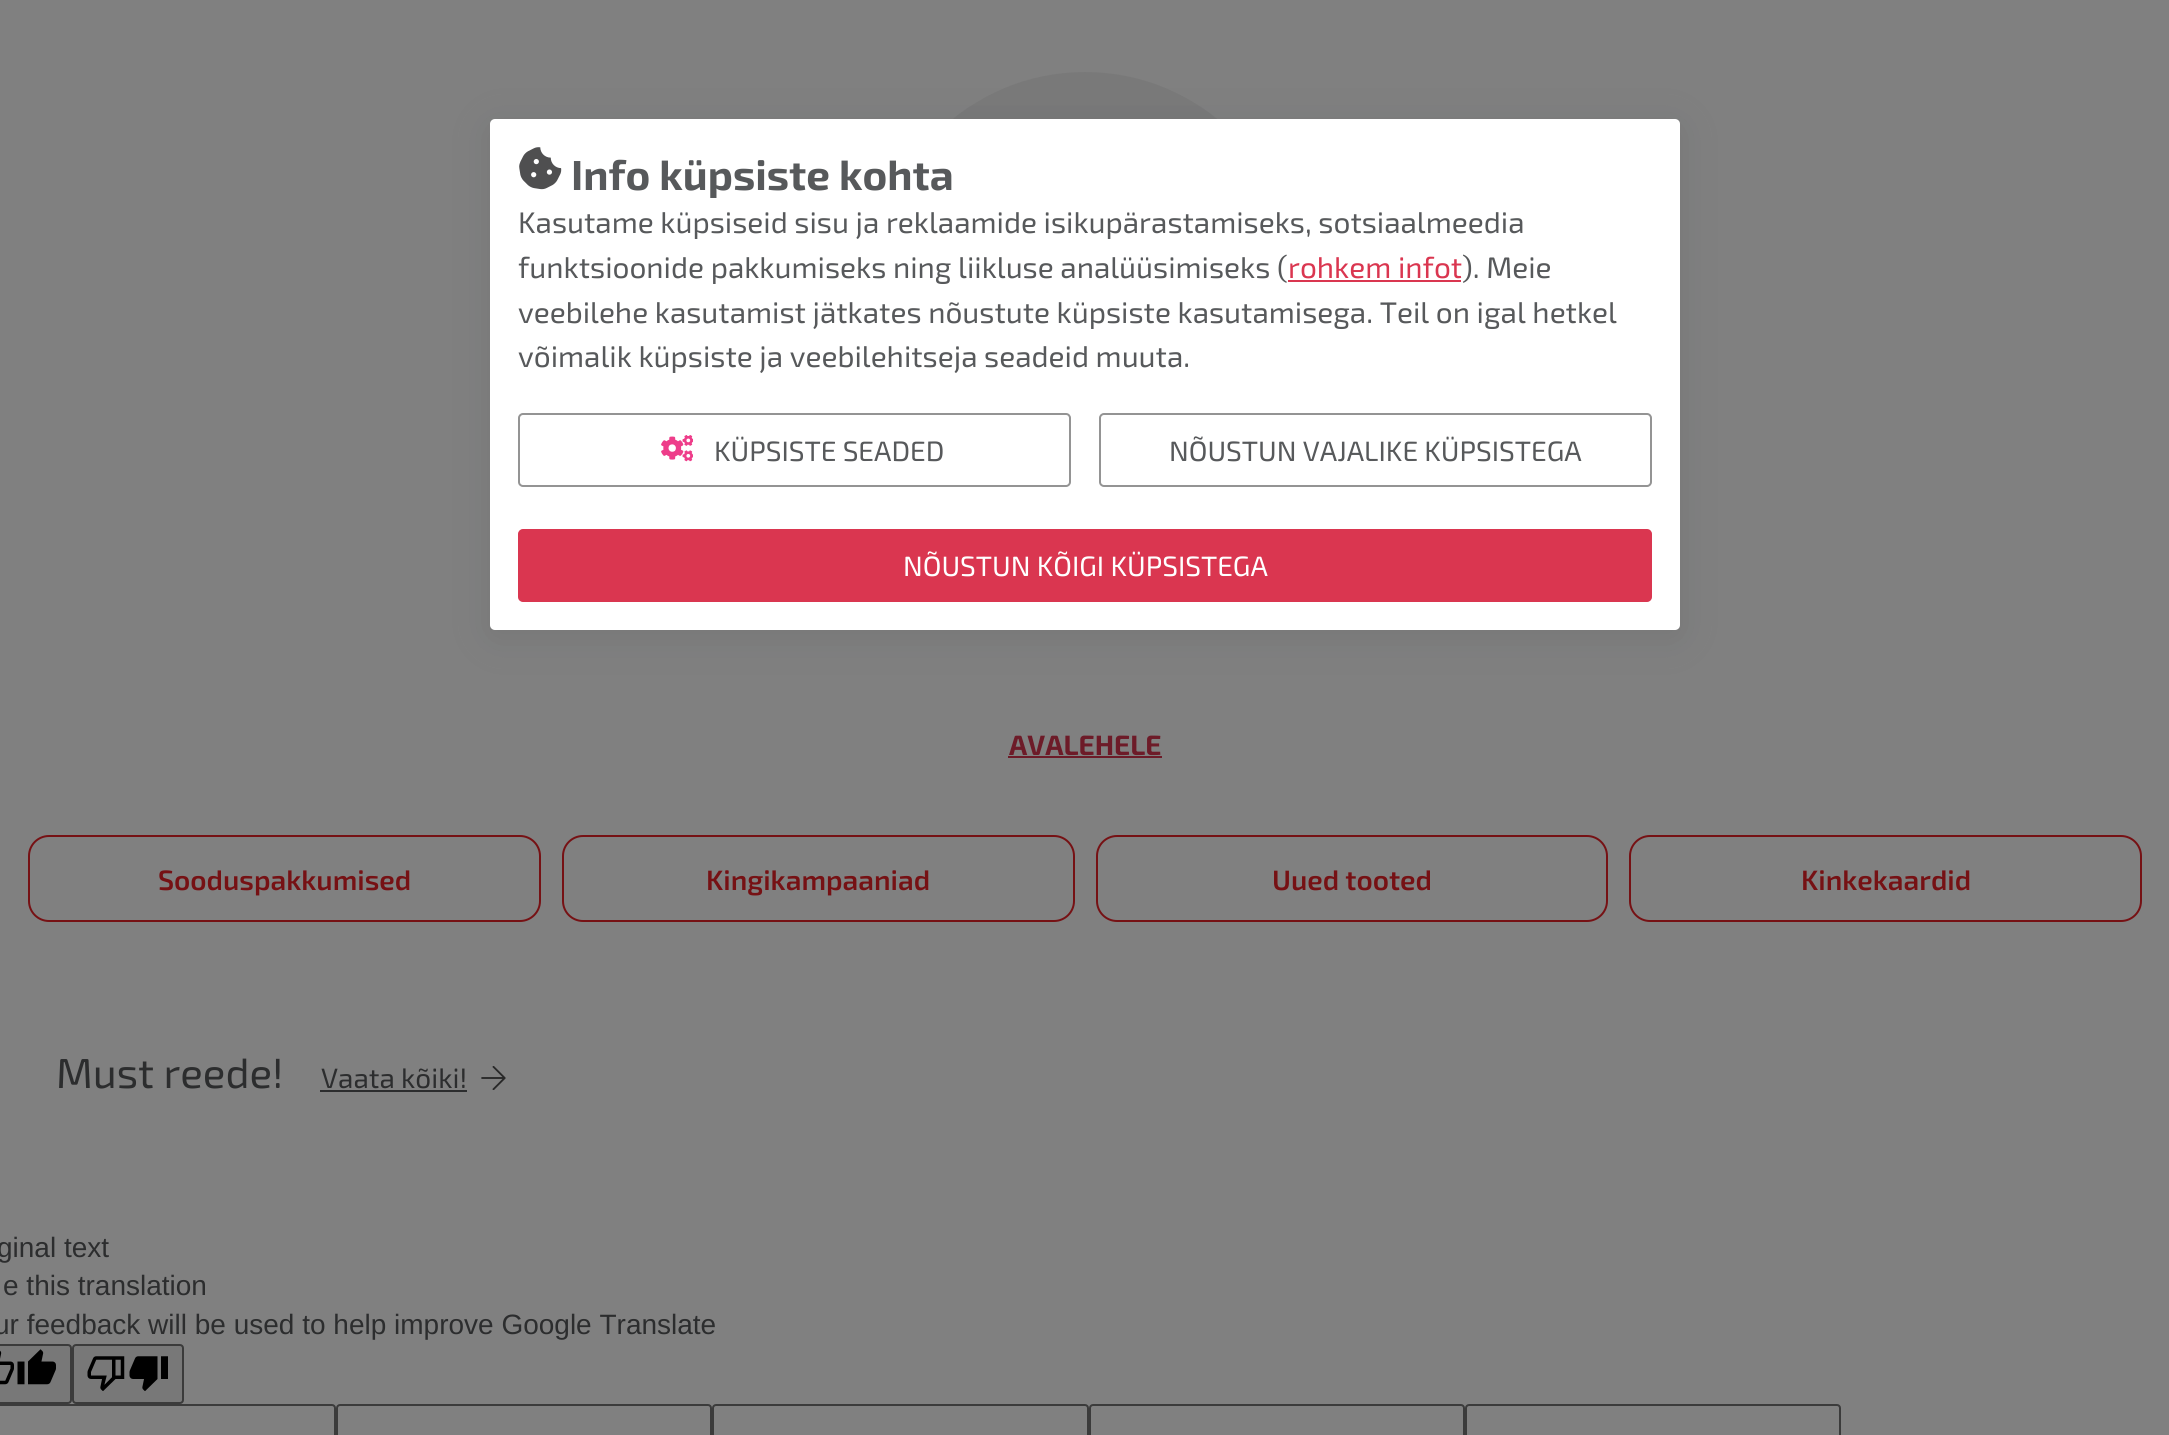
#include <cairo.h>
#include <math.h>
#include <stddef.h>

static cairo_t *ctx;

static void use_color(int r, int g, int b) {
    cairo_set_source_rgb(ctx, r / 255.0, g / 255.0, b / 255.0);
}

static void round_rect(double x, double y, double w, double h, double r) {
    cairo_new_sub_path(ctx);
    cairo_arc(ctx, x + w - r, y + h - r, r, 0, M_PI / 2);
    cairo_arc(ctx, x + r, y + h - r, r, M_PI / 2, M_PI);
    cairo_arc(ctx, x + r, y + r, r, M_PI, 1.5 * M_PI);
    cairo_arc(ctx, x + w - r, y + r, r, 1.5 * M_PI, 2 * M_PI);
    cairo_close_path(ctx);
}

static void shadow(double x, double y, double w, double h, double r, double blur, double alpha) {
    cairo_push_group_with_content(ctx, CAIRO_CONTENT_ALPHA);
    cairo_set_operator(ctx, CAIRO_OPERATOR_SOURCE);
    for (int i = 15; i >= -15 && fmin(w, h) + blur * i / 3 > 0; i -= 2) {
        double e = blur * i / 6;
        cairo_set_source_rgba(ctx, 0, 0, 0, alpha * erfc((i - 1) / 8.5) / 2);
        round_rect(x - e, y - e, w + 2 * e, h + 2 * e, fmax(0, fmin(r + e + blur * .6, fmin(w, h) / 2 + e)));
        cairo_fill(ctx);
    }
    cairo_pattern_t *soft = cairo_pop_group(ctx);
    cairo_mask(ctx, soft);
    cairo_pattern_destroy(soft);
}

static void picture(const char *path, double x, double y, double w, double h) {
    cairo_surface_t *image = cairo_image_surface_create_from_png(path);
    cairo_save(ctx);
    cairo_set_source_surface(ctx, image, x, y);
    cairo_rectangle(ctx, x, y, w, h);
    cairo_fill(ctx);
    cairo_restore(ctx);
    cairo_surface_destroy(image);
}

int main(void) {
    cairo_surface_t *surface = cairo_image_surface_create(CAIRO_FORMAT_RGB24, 2169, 1435);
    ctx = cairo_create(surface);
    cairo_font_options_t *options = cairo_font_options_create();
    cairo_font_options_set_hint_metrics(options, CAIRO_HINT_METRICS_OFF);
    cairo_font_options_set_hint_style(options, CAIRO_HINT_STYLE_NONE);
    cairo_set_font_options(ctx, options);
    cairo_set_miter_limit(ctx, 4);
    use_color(128, 128, 128);
    cairo_paint(ctx);
    use_color(121, 121, 121);
    cairo_arc(ctx, 1085, 282, 210, 0, 2 * M_PI);
    cairo_fill(ctx);
    use_color(87, 89, 91);
    shadow(490, 126, 1190, 511, 5, 17.5, 0.25);
    use_color(255, 255, 255);
    round_rect(490, 119, 1190, 511, 5);
    cairo_fill(ctx);
    picture("img1.png", 519, 147, 43, 43);
    cairo_select_font_face(ctx, "Exo 2", CAIRO_FONT_SLANT_NORMAL, CAIRO_FONT_WEIGHT_BOLD);
    cairo_set_font_size(ctx, 42);
    use_color(87, 89, 91);
    cairo_move_to(ctx, 571, 190);
    cairo_show_text(ctx, "Info küpsiste kohta");
    cairo_select_font_face(ctx, "Exo 2", CAIRO_FONT_SLANT_NORMAL, CAIRO_FONT_WEIGHT_NORMAL);
    cairo_set_font_size(ctx, 29.75);
    cairo_move_to(ctx, 518, 233);
    cairo_show_text(ctx, "Kasutame küpsiseid sisu ja reklaamide isikupärastamiseks, sotsiaalmeedia");
    cairo_move_to(ctx, 518, 278);
    cairo_show_text(ctx, "funktsioonide pakkumiseks ning liikluse analüüsimiseks (");
    use_color(218, 54, 80);
    cairo_move_to(ctx, 1288, 278);
    cairo_show_text(ctx, "rohkem infot");
    cairo_rectangle(ctx, 1288, 280, 173, 2);
    cairo_fill(ctx);
    use_color(87, 89, 91);
    cairo_move_to(ctx, 1462, 278);
    cairo_show_text(ctx, "). Meie");
    cairo_move_to(ctx, 518, 323);
    cairo_show_text(ctx, "veebilehe kasutamist jätkates nõustute küpsiste kasutamisega. Teil on igal hetkel");
    cairo_move_to(ctx, 518, 367);
    cairo_show_text(ctx, "võimalik küpsiste ja veebilehitseja seadeid muuta.");
    round_rect(519, 414, 551, 72, 4);
    use_color(148, 148, 148);
    cairo_stroke(ctx);
    picture("img2.png", 661, 435, 32, 27);
    cairo_set_font_size(ctx, 28);
    use_color(87, 89, 91);
    cairo_move_to(ctx, 714, 461);
    cairo_show_text(ctx, "KÜPSISTE SEADED");
    round_rect(1100, 414, 551, 72, 4);
    use_color(148, 148, 148);
    cairo_stroke(ctx);
    use_color(87, 89, 91);
    cairo_move_to(ctx, 1169, 461);
    cairo_show_text(ctx, "NÕUSTUN VAJALIKE KÜPSISTEGA");
    use_color(218, 54, 80);
    round_rect(519, 530, 1132, 71, 4);
    cairo_fill_preserve(ctx);
    cairo_stroke(ctx);
    use_color(255, 255, 255);
    cairo_move_to(ctx, 903, 576);
    cairo_show_text(ctx, "NÕUSTUN KÕIGI KÜPSISTEGA");
    cairo_select_font_face(ctx, "Exo 2", CAIRO_FONT_SLANT_NORMAL, CAIRO_FONT_WEIGHT_BOLD);
    use_color(109, 27, 40);
    cairo_move_to(ctx, 1009, 755);
    cairo_show_text(ctx, "AVALEHELE");
    cairo_rectangle(ctx, 1008, 756, 154, 2);
    cairo_fill(ctx);
    round_rect(29, 836, 511, 85, 20);
    use_color(118, 17, 20);
    cairo_stroke(ctx);
    cairo_select_font_face(ctx, "Exo 2 SemiBold", CAIRO_FONT_SLANT_NORMAL, CAIRO_FONT_WEIGHT_NORMAL);
    cairo_move_to(ctx, 158, 890);
    cairo_show_text(ctx, "Sooduspakkumised");
    round_rect(563, 836, 511, 85, 20);
    cairo_stroke(ctx);
    cairo_move_to(ctx, 706, 890);
    cairo_show_text(ctx, "Kingikampaaniad");
    round_rect(1097, 836, 510, 85, 20);
    cairo_stroke(ctx);
    cairo_move_to(ctx, 1272, 890);
    cairo_show_text(ctx, "Uued tooted");
    round_rect(1630, 836, 511, 85, 20);
    cairo_stroke(ctx);
    cairo_move_to(ctx, 1801, 890);
    cairo_show_text(ctx, "Kinkekaardid");
    cairo_select_font_face(ctx, "Exo 2", CAIRO_FONT_SLANT_NORMAL, CAIRO_FONT_WEIGHT_NORMAL);
    cairo_set_font_size(ctx, 42);
    use_color(44, 45, 46);
    cairo_move_to(ctx, 56, 1088);
    cairo_show_text(ctx, "Must reede!");
    cairo_set_font_size(ctx, 28);
    cairo_move_to(ctx, 321, 1088);
    cairo_show_text(ctx, "Vaata kõiki!");
    cairo_rectangle(ctx, 320, 1090, 147, 2);
    cairo_fill(ctx);
    picture("img3.png", 481, 1066, 25, 24);
    cairo_select_font_face(ctx, "Liberation Sans", CAIRO_FONT_SLANT_NORMAL, CAIRO_FONT_WEIGHT_NORMAL);
    cairo_move_to(ctx, -3, 1257);
    cairo_show_text(ctx, "ginal text");
    cairo_move_to(ctx, 3, 1295);
    cairo_show_text(ctx, "e this translation");
    cairo_move_to(ctx, -6, 1334);
    cairo_show_text(ctx, "ur feedback will be used to help improve Google Translate");
    use_color(120, 120, 120);
    round_rect(-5, 1345, 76, 58, 3);
    cairo_fill_preserve(ctx);
    use_color(59, 59, 59);
    cairo_stroke(ctx);
    picture("img4.png", 0, 1350, 14, 35);
    picture("img5.png", 17, 1349, 39, 36);
    use_color(120, 120, 120);
    round_rect(73, 1345, 110, 58, 3);
    cairo_fill_preserve(ctx);
    use_color(59, 59, 59);
    cairo_stroke(ctx);
    picture("img6.png", 87, 1356, 38, 35);
    picture("img7.png", 129, 1356, 39, 35);
    round_rect(-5, 1405, 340, 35, 3);
    cairo_stroke(ctx);
    round_rect(337, 1405, 374, 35, 3);
    cairo_stroke(ctx);
    round_rect(713, 1405, 375, 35, 3);
    cairo_stroke(ctx);
    round_rect(1090, 1405, 374, 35, 3);
    cairo_stroke(ctx);
    round_rect(1466, 1405, 374, 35, 3);
    cairo_stroke(ctx);
    cairo_surface_write_to_png(surface, "result.png");
    cairo_font_options_destroy(options);
    cairo_destroy(ctx);
    cairo_surface_destroy(surface);
    return 0;
}
